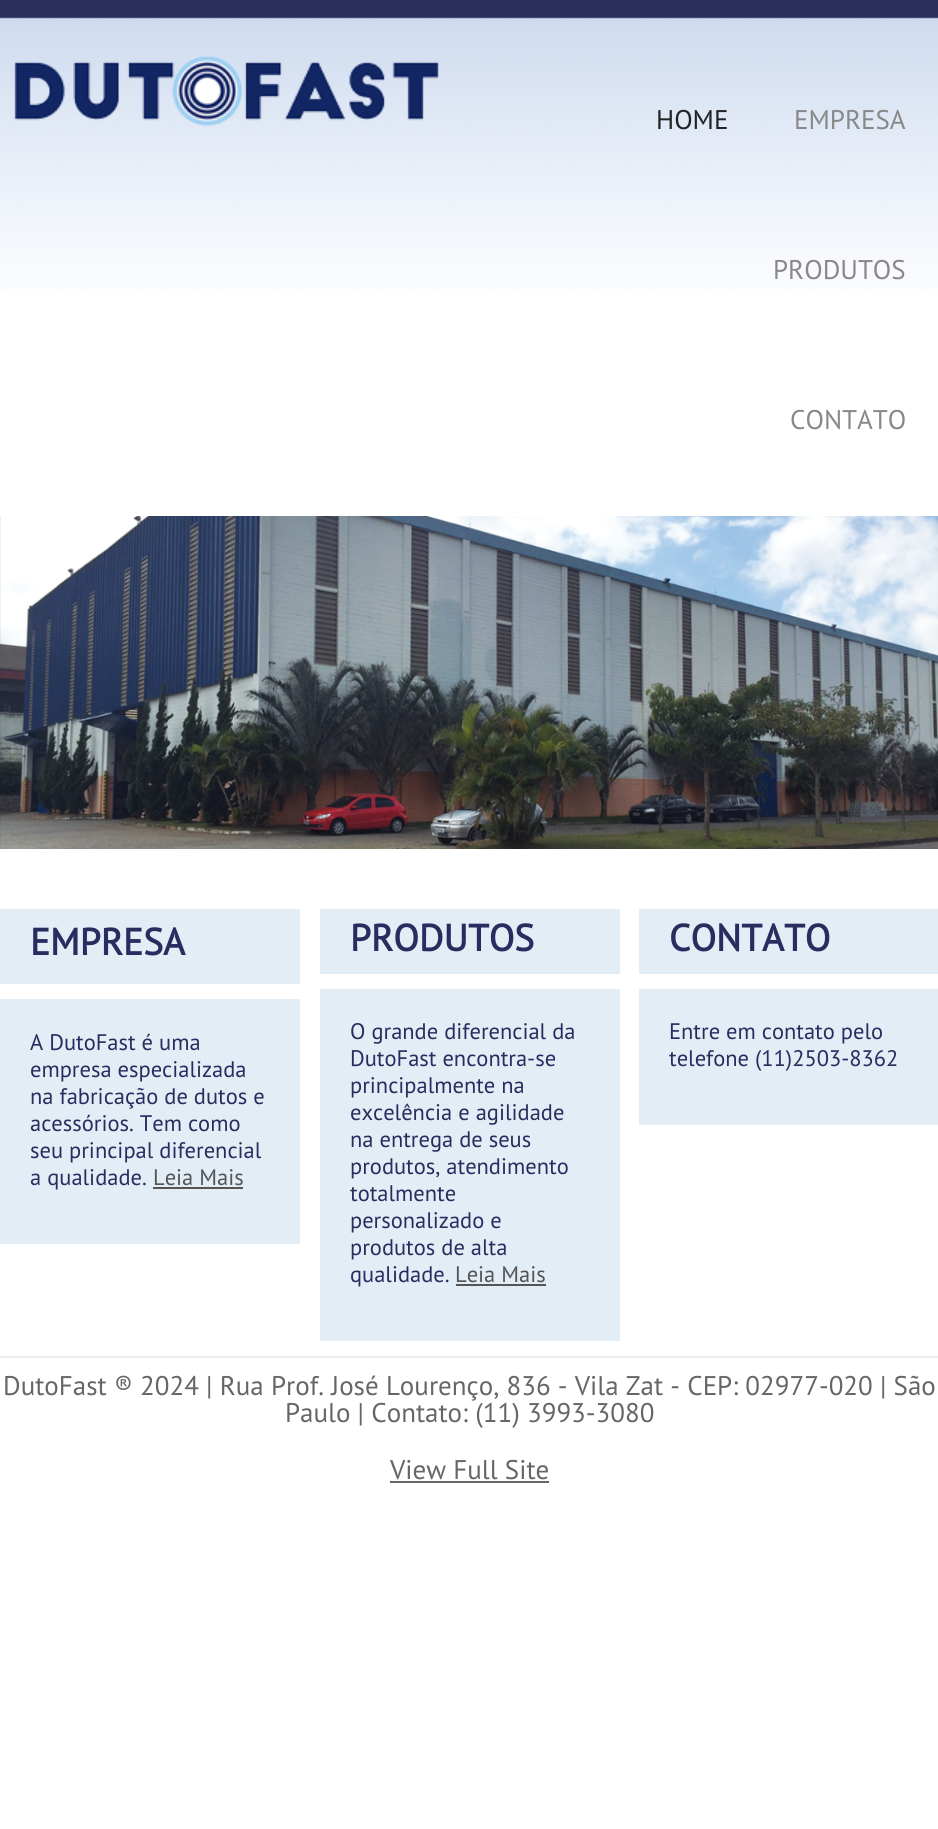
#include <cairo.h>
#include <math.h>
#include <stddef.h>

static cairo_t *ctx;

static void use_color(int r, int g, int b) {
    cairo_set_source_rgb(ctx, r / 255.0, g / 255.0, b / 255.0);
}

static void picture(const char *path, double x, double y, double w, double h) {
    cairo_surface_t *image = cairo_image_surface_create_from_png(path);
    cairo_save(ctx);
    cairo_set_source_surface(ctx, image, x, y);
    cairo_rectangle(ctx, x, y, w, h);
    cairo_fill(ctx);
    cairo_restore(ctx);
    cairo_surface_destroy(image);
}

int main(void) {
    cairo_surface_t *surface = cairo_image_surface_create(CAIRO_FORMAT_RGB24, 938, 1829);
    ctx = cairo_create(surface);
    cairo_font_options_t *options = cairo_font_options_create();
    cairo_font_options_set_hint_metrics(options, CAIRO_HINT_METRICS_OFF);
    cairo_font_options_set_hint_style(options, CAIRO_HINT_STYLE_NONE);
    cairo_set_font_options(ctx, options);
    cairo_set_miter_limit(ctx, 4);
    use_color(255, 255, 255);
    cairo_paint(ctx);
    picture("img1.png", 0, 0, 938, 289);
    picture("img2.png", 14, 56, 425, 71);
    cairo_select_font_face(ctx, "PT Sans", CAIRO_FONT_SLANT_NORMAL, CAIRO_FONT_WEIGHT_NORMAL);
    cairo_set_font_size(ctx, 27);
    use_color(34, 34, 34);
    cairo_move_to(ctx, 656, 129);
    cairo_show_text(ctx, "HOME");
    use_color(136, 136, 136);
    cairo_move_to(ctx, 794, 129);
    cairo_show_text(ctx, "EMPRESA");
    cairo_move_to(ctx, 773, 279);
    cairo_show_text(ctx, "PRODUTOS");
    cairo_move_to(ctx, 790, 429);
    cairo_show_text(ctx, "CONTATO");
    picture("img3.png", 0, 516, 938, 333);
    use_color(226, 237, 246);
    cairo_rectangle(ctx, 0, 909, 300, 75);
    cairo_fill(ctx);
    cairo_select_font_face(ctx, "PT Sans", CAIRO_FONT_SLANT_NORMAL, CAIRO_FONT_WEIGHT_BOLD);
    cairo_set_font_size(ctx, 37.5);
    use_color(40, 45, 95);
    cairo_move_to(ctx, 30, 955);
    cairo_show_text(ctx, "EMPRESA");
    use_color(226, 237, 246);
    cairo_rectangle(ctx, 0, 999, 300, 245);
    cairo_fill(ctx);
    cairo_select_font_face(ctx, "PT Sans", CAIRO_FONT_SLANT_NORMAL, CAIRO_FONT_WEIGHT_NORMAL);
    cairo_set_font_size(ctx, 22.5);
    use_color(40, 45, 95);
    cairo_move_to(ctx, 30, 1050);
    cairo_show_text(ctx, "A DutoFast é uma");
    cairo_move_to(ctx, 30, 1077);
    cairo_show_text(ctx, "empresa especializada");
    cairo_move_to(ctx, 30, 1104);
    cairo_show_text(ctx, "na fabricação de dutos e");
    cairo_move_to(ctx, 30, 1131);
    cairo_show_text(ctx, "acessórios. Tem como");
    cairo_move_to(ctx, 30, 1158);
    cairo_show_text(ctx, "seu principal diferencial");
    cairo_move_to(ctx, 30, 1185);
    cairo_show_text(ctx, "a qualidade.");
    use_color(85, 85, 85);
    cairo_move_to(ctx, 153, 1185);
    cairo_show_text(ctx, "Leia Mais");
    cairo_rectangle(ctx, 153, 1187, 90, 2);
    cairo_fill(ctx);
    use_color(226, 237, 246);
    cairo_rectangle(ctx, 320, 909, 300, 65);
    cairo_fill(ctx);
    cairo_select_font_face(ctx, "PT Sans", CAIRO_FONT_SLANT_NORMAL, CAIRO_FONT_WEIGHT_BOLD);
    cairo_set_font_size(ctx, 37.5);
    use_color(40, 45, 95);
    cairo_move_to(ctx, 350, 951);
    cairo_show_text(ctx, "PRODUTOS");
    use_color(226, 237, 246);
    cairo_rectangle(ctx, 320, 989, 300, 352);
    cairo_fill(ctx);
    cairo_select_font_face(ctx, "PT Sans", CAIRO_FONT_SLANT_NORMAL, CAIRO_FONT_WEIGHT_NORMAL);
    cairo_set_font_size(ctx, 22.5);
    use_color(40, 45, 95);
    cairo_move_to(ctx, 350, 1039);
    cairo_show_text(ctx, "O grande diferencial da");
    cairo_move_to(ctx, 350, 1066);
    cairo_show_text(ctx, "DutoFast encontra-se");
    cairo_move_to(ctx, 350, 1093);
    cairo_show_text(ctx, "principalmente na");
    cairo_move_to(ctx, 350, 1120);
    cairo_show_text(ctx, "excelência e agilidade");
    cairo_move_to(ctx, 350, 1147);
    cairo_show_text(ctx, "na entrega de seus");
    cairo_move_to(ctx, 350, 1174);
    cairo_show_text(ctx, "produtos, atendimento");
    cairo_move_to(ctx, 350, 1201);
    cairo_show_text(ctx, "totalmente");
    cairo_move_to(ctx, 350, 1228);
    cairo_show_text(ctx, "personalizado e");
    cairo_move_to(ctx, 350, 1255);
    cairo_show_text(ctx, "produtos de alta");
    cairo_move_to(ctx, 350, 1282);
    cairo_show_text(ctx, "qualidade.");
    use_color(85, 85, 85);
    cairo_move_to(ctx, 455, 1282);
    cairo_show_text(ctx, "Leia Mais");
    cairo_rectangle(ctx, 456, 1284, 90, 2);
    cairo_fill(ctx);
    use_color(226, 237, 246);
    cairo_rectangle(ctx, 639, 909, 299, 65);
    cairo_fill(ctx);
    cairo_select_font_face(ctx, "PT Sans", CAIRO_FONT_SLANT_NORMAL, CAIRO_FONT_WEIGHT_BOLD);
    cairo_set_font_size(ctx, 37.5);
    use_color(40, 45, 95);
    cairo_move_to(ctx, 669, 951);
    cairo_show_text(ctx, "CONTATO");
    use_color(226, 237, 246);
    cairo_rectangle(ctx, 639, 989, 299, 136);
    cairo_fill(ctx);
    cairo_select_font_face(ctx, "PT Sans", CAIRO_FONT_SLANT_NORMAL, CAIRO_FONT_WEIGHT_NORMAL);
    cairo_set_font_size(ctx, 22.5);
    use_color(40, 45, 95);
    cairo_move_to(ctx, 669, 1039);
    cairo_show_text(ctx, "Entre em contato pelo");
    cairo_move_to(ctx, 669, 1066);
    cairo_show_text(ctx, "telefone (11)2503-8362");
    use_color(238, 238, 238);
    cairo_rectangle(ctx, 0, 1356, 938, 2);
    cairo_fill(ctx);
    cairo_set_font_size(ctx, 27);
    use_color(102, 102, 102);
    cairo_move_to(ctx, 3, 1395);
    cairo_show_text(ctx, "DutoFast ® 2024 | Rua Prof. José Lourenço, 836 - Vila Zat - CEP: 02977-020 | São");
    cairo_move_to(ctx, 285, 1422);
    cairo_show_text(ctx, "Paulo | Contato: (11) 3993-3080");
    cairo_move_to(ctx, 390, 1479);
    cairo_show_text(ctx, "View Full Site");
    cairo_rectangle(ctx, 390, 1481, 159, 2);
    cairo_fill(ctx);
    cairo_surface_write_to_png(surface, "result.png");
    cairo_font_options_destroy(options);
    cairo_destroy(ctx);
    cairo_surface_destroy(surface);
    return 0;
}
